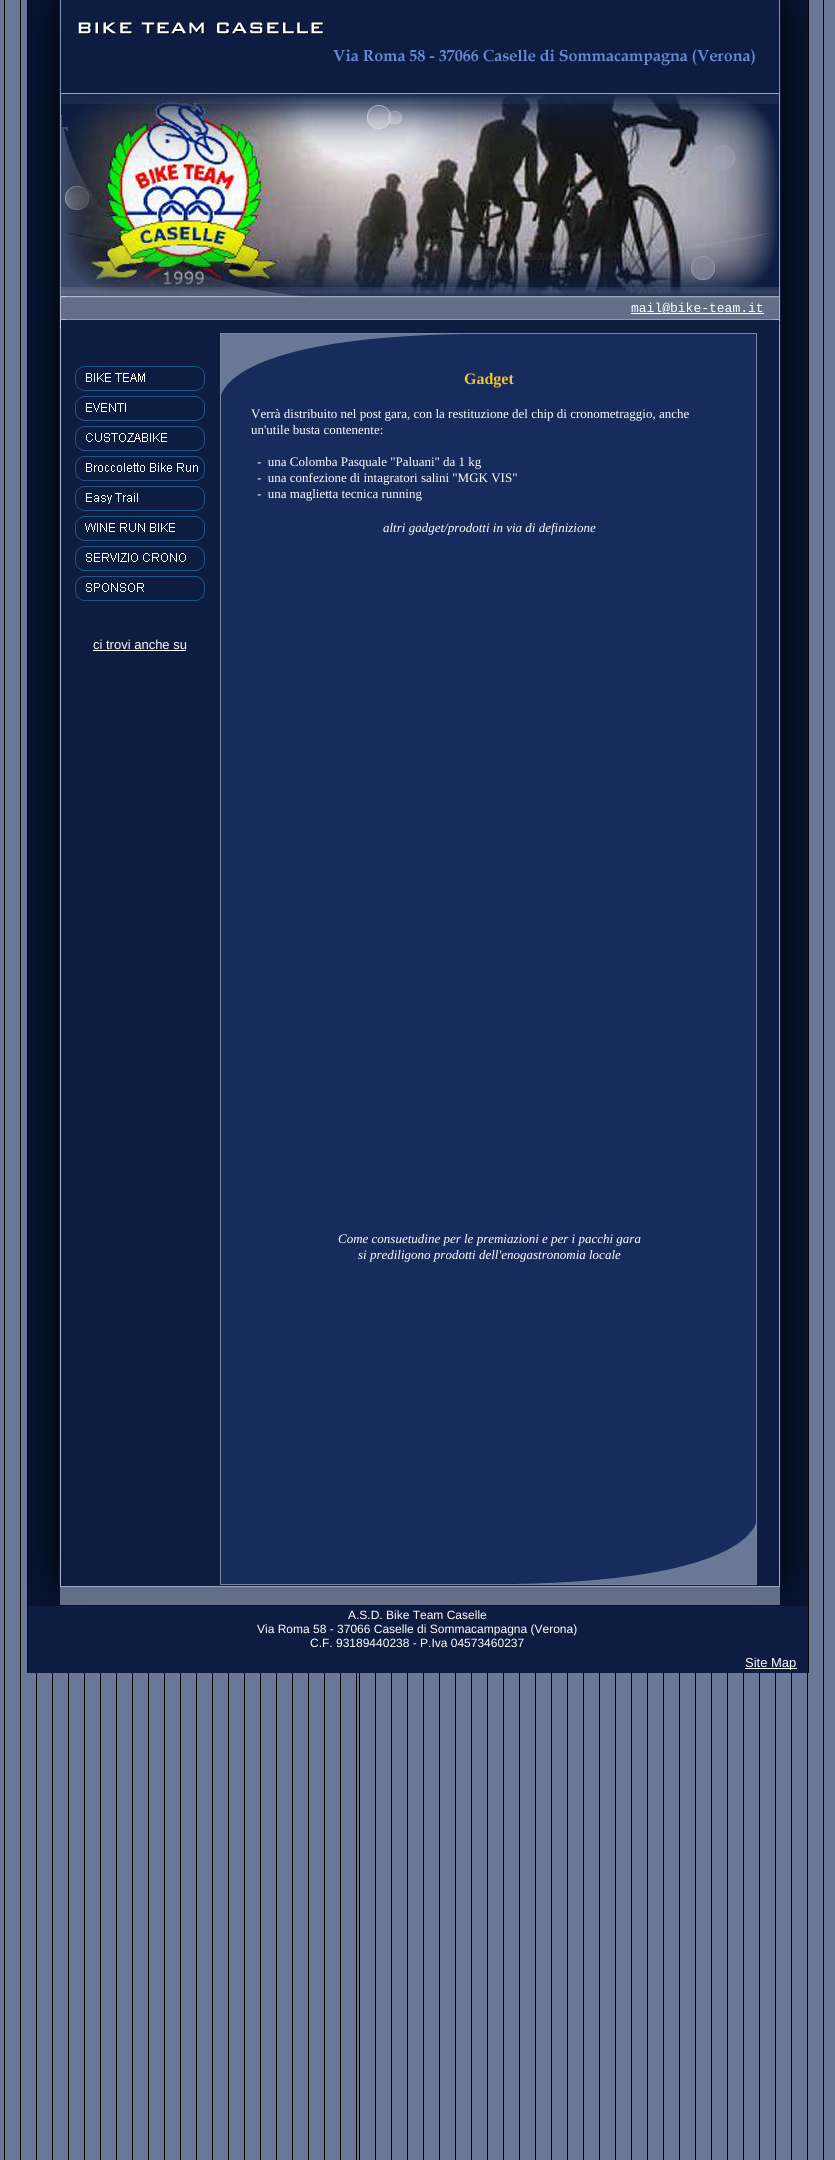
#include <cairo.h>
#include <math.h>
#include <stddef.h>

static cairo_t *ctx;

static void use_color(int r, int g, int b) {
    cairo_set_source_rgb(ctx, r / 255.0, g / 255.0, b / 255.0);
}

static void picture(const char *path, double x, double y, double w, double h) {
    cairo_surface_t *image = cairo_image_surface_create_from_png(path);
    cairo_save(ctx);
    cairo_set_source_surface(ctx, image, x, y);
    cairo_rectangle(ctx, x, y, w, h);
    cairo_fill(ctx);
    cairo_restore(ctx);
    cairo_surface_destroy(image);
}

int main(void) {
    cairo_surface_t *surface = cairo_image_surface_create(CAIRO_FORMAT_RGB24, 835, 2160);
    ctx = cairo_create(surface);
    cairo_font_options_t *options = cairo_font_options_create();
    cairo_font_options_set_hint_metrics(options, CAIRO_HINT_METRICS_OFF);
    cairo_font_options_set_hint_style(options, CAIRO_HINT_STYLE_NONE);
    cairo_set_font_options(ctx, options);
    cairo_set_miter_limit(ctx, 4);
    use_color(255, 255, 255);
    cairo_paint(ctx);
    picture("img1.png", 0, 0, 835, 2160);
    use_color(13, 29, 66);
    cairo_rectangle(ctx, 28, 12, 780, 1661);
    cairo_fill(ctx);
    use_color(0, 0, 0);
    cairo_rectangle(ctx, 808, 0, 1, 1673);
    cairo_fill(ctx);
    cairo_rectangle(ctx, 27, 0, 1, 1673);
    cairo_fill(ctx);
    picture("img2.png", 28, 0, 780, 12);
    picture("img3.png", 28, 12, 33, 308);
    picture("img4.png", 78, 22, 246, 13);
    picture("img5.png", 779, 12, 29, 284);
    picture("img6.png", 333, 49, 422, 17);
    picture("img7.png", 61, 93, 718, 1);
    picture("img8.png", 61, 94, 718, 202);
    picture("img9.png", 61, 296, 330, 24);
    picture("img10.png", 391, 296, 373, 24);
    use_color(255, 255, 255);
    cairo_rectangle(ctx, 631, 313, 133, 1);
    cairo_fill(ctx);
    cairo_select_font_face(ctx, "Liberation Mono", CAIRO_FONT_SLANT_NORMAL, CAIRO_FONT_WEIGHT_NORMAL);
    cairo_set_font_size(ctx, 13);
    cairo_move_to(ctx, 631, 312);
    cairo_show_text(ctx, "mail@bike-team.it");
    picture("img11.png", 764, 296, 44, 24);
    picture("img12.png", 28, 320, 780, 14);
    picture("img13.png", 28, 334, 33, 1184);
    picture("img14.png", 75, 366, 130, 25);
    picture("img15.png", 75, 396, 130, 25);
    picture("img16.png", 75, 426, 130, 25);
    picture("img17.png", 75, 456, 130, 25);
    picture("img18.png", 75, 486, 130, 25);
    picture("img19.png", 75, 516, 130, 25);
    picture("img20.png", 75, 546, 130, 25);
    picture("img21.png", 75, 576, 130, 25);
    cairo_select_font_face(ctx, "Liberation Sans", CAIRO_FONT_SLANT_NORMAL, CAIRO_FONT_WEIGHT_NORMAL);
    cairo_move_to(ctx, 93, 649);
    cairo_show_text(ctx, "ci trovi anche su");
    cairo_rectangle(ctx, 93, 650, 93, 1);
    cairo_fill(ctx);
    picture("img22.png", 220, 334, 588, 1184);
    picture("img23.png", 221, 334, 238, 36);
    picture("img24.png", 221, 370, 25, 25);
    cairo_select_font_face(ctx, "Liberation Serif", CAIRO_FONT_SLANT_NORMAL, CAIRO_FONT_WEIGHT_BOLD);
    cairo_set_font_size(ctx, 16);
    use_color(241, 194, 50);
    cairo_move_to(ctx, 464, 384);
    cairo_show_text(ctx, "Gadget");
    cairo_select_font_face(ctx, "Liberation Serif", CAIRO_FONT_SLANT_NORMAL, CAIRO_FONT_WEIGHT_NORMAL);
    cairo_set_font_size(ctx, 13);
    use_color(255, 255, 255);
    cairo_move_to(ctx, 251, 418);
    cairo_show_text(ctx, "Verrà distribuito nel post gara, con la restituzione del chip di cronometraggio, anche");
    cairo_move_to(ctx, 251, 434);
    cairo_show_text(ctx, "un'utile busta contenente:");
    cairo_move_to(ctx, 257, 466);
    cairo_show_text(ctx, "-  una Colomba Pasquale \"Paluani\" da 1 kg");
    cairo_move_to(ctx, 257, 482);
    cairo_show_text(ctx, "-  una confezione di intagratori salini \"MGK VIS\"");
    cairo_move_to(ctx, 257, 498);
    cairo_show_text(ctx, "-  una maglietta tecnica running");
    cairo_select_font_face(ctx, "Liberation Serif", CAIRO_FONT_SLANT_ITALIC, CAIRO_FONT_WEIGHT_NORMAL);
    cairo_move_to(ctx, 383, 532);
    cairo_show_text(ctx, "altri gadget/prodotti in via di definizione");
    cairo_move_to(ctx, 338, 1243);
    cairo_show_text(ctx, "Come consuetudine per le premiazioni e per i pacchi gara");
    cairo_move_to(ctx, 358, 1259);
    cairo_show_text(ctx, "si prediligono prodotti dell'enogastronomia locale");
    picture("img25.png", 28, 1518, 780, 88);
    cairo_select_font_face(ctx, "Liberation Sans", CAIRO_FONT_SLANT_NORMAL, CAIRO_FONT_WEIGHT_NORMAL);
    cairo_set_font_size(ctx, 12);
    cairo_move_to(ctx, 348, 1619);
    cairo_show_text(ctx, "A.S.D. Bike Team Caselle");
    cairo_move_to(ctx, 257, 1633);
    cairo_show_text(ctx, "Via Roma 58 - 37066 Caselle di Sommacampagna (Verona)");
    cairo_move_to(ctx, 310, 1647);
    cairo_show_text(ctx, "C.F. 93189440238 - P.Iva 04573460237");
    cairo_rectangle(ctx, 745, 1668, 52, 1);
    cairo_fill(ctx);
    cairo_set_font_size(ctx, 13);
    cairo_move_to(ctx, 745, 1667);
    cairo_show_text(ctx, "Site Map");
    cairo_surface_write_to_png(surface, "result.png");
    cairo_font_options_destroy(options);
    cairo_destroy(ctx);
    cairo_surface_destroy(surface);
    return 0;
}
